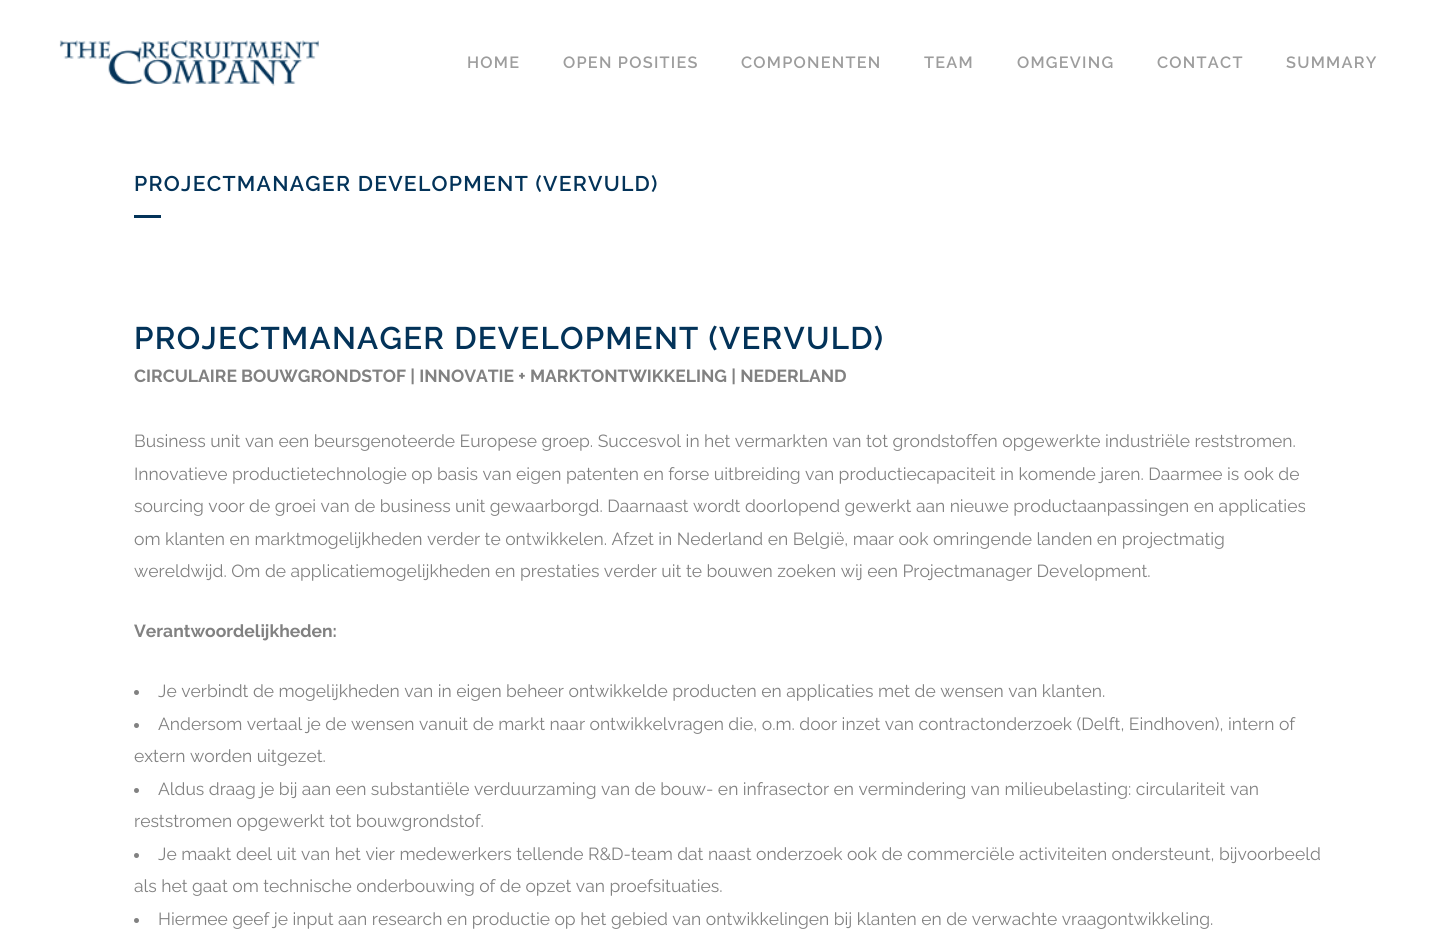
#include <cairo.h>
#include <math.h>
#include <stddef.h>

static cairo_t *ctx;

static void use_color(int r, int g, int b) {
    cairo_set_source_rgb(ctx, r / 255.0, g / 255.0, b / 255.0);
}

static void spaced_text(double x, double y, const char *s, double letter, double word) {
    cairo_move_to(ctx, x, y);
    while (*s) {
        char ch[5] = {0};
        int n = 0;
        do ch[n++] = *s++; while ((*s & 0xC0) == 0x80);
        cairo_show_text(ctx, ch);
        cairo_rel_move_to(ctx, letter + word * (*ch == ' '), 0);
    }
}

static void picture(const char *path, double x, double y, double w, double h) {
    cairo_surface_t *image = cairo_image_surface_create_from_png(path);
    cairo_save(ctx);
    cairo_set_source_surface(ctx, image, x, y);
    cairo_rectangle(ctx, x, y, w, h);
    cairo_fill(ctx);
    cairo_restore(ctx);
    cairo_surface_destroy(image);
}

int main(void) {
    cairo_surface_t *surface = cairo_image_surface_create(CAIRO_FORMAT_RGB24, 1454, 949);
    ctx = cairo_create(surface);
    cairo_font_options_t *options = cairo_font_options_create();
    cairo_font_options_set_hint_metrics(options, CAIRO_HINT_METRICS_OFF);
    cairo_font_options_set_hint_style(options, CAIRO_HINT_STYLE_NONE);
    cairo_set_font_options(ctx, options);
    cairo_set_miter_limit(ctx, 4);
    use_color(255, 255, 255);
    cairo_paint(ctx);
    picture("img1.png", 59, 40, 260, 46);
    cairo_select_font_face(ctx, "Raleway SemiBold", CAIRO_FONT_SLANT_NORMAL, CAIRO_FONT_WEIGHT_NORMAL);
    cairo_set_font_size(ctx, 16.25);
    use_color(157, 157, 157);
    spaced_text(467, 68, "HOME", 1.25, 0);
    spaced_text(563, 68, "OPEN POSITIES", 1.25, 0);
    spaced_text(741, 68, "COMPONENTEN", 1.25, 0);
    spaced_text(924, 68, "TEAM", 1.25, 0);
    spaced_text(1017, 68, "OMGEVING", 1.25, 0);
    spaced_text(1157, 68, "CONTACT", 1.25, 0);
    spaced_text(1286, 68, "SUMMARY", 1.25, 0);
    cairo_set_font_size(ctx, 21.25);
    use_color(3, 51, 89);
    spaced_text(134, 191, "PROJECTMANAGER DEVELOPMENT (VERVULD)", 1.25, 0);
    cairo_rectangle(ctx, 134, 215, 27, 3);
    cairo_fill(ctx);
    cairo_set_font_size(ctx, 31.25);
    spaced_text(134, 349, "PROJECTMANAGER DEVELOPMENT (VERVULD)", 1.25, 0);
    cairo_select_font_face(ctx, "Raleway", CAIRO_FONT_SLANT_NORMAL, CAIRO_FONT_WEIGHT_BOLD);
    cairo_set_font_size(ctx, 17.5);
    use_color(129, 129, 129);
    cairo_move_to(ctx, 134, 382);
    cairo_show_text(ctx, "CIRCULAIRE BOUWGRONDSTOF | INNOVATIE + MARKTONTWIKKELING | NEDERLAND");
    cairo_select_font_face(ctx, "Raleway", CAIRO_FONT_SLANT_NORMAL, CAIRO_FONT_WEIGHT_NORMAL);
    cairo_move_to(ctx, 134, 447);
    cairo_show_text(ctx, "Business unit van een beursgenoteerde Europese groep. Succesvol in het vermarkten van tot grondstoffen opgewerkte industriële reststromen.");
    cairo_move_to(ctx, 134, 480);
    cairo_show_text(ctx, "Innovatieve productietechnologie op basis van eigen patenten en forse uitbreiding van productiecapaciteit in komende jaren. Daarmee is ook de");
    cairo_move_to(ctx, 134, 512);
    cairo_show_text(ctx, "sourcing voor de groei van de business unit gewaarborgd. Daarnaast wordt doorlopend gewerkt aan nieuwe productaanpassingen en applicaties");
    cairo_move_to(ctx, 134, 545);
    cairo_show_text(ctx, "om klanten en marktmogelijkheden verder te ontwikkelen. Afzet in Nederland en België, maar ook omringende landen en projectmatig");
    cairo_move_to(ctx, 134, 577);
    cairo_show_text(ctx, "wereldwijd. Om de applicatiemogelijkheden en prestaties verder uit te bouwen zoeken wij een Projectmanager Development.");
    cairo_select_font_face(ctx, "Raleway", CAIRO_FONT_SLANT_NORMAL, CAIRO_FONT_WEIGHT_BOLD);
    cairo_move_to(ctx, 134, 637);
    cairo_show_text(ctx, "Verantwoordelijkheden:");
    cairo_new_path(ctx);
    cairo_arc(ctx, 136.5, 692.5, 2.5, 0, 2 * M_PI);
    cairo_fill(ctx);
    cairo_select_font_face(ctx, "Raleway", CAIRO_FONT_SLANT_NORMAL, CAIRO_FONT_WEIGHT_NORMAL);
    cairo_move_to(ctx, 158, 697);
    cairo_show_text(ctx, "Je verbindt de mogelijkheden van in eigen beheer ontwikkelde producten en applicaties met de wensen van klanten.");
    cairo_new_path(ctx);
    cairo_arc(ctx, 136.5, 725.5, 2.5, 0, 2 * M_PI);
    cairo_fill(ctx);
    cairo_move_to(ctx, 158, 730);
    cairo_show_text(ctx, "Andersom vertaal je de wensen vanuit de markt naar ontwikkelvragen die, o.m. door inzet van contractonderzoek (Delft, Eindhoven), intern of");
    cairo_move_to(ctx, 134, 762);
    cairo_show_text(ctx, "extern worden uitgezet.");
    cairo_new_path(ctx);
    cairo_arc(ctx, 136.5, 790.5, 2.5, 0, 2 * M_PI);
    cairo_fill(ctx);
    cairo_move_to(ctx, 158, 795);
    cairo_show_text(ctx, "Aldus draag je bij aan een substantiële verduurzaming van de bouw- en infrasector en vermindering van milieubelasting: circulariteit van");
    cairo_move_to(ctx, 134, 827);
    cairo_show_text(ctx, "reststromen opgewerkt tot bouwgrondstof.");
    cairo_new_path(ctx);
    cairo_arc(ctx, 136.5, 855.5, 2.5, 0, 2 * M_PI);
    cairo_fill(ctx);
    cairo_move_to(ctx, 158, 860);
    cairo_show_text(ctx, "Je maakt deel uit van het vier medewerkers tellende R&D-team dat naast onderzoek ook de commerciële activiteiten ondersteunt, bijvoorbeeld");
    cairo_move_to(ctx, 134, 892);
    cairo_show_text(ctx, "als het gaat om technische onderbouwing of de opzet van proefsituaties.");
    cairo_new_path(ctx);
    cairo_arc(ctx, 136.5, 920.5, 2.5, 0, 2 * M_PI);
    cairo_fill(ctx);
    cairo_move_to(ctx, 158, 925);
    cairo_show_text(ctx, "Hiermee geef je input aan research en productie op het gebied van ontwikkelingen bij klanten en de verwachte vraagontwikkeling.");
    cairo_surface_write_to_png(surface, "result.png");
    cairo_font_options_destroy(options);
    cairo_destroy(ctx);
    cairo_surface_destroy(surface);
    return 0;
}
